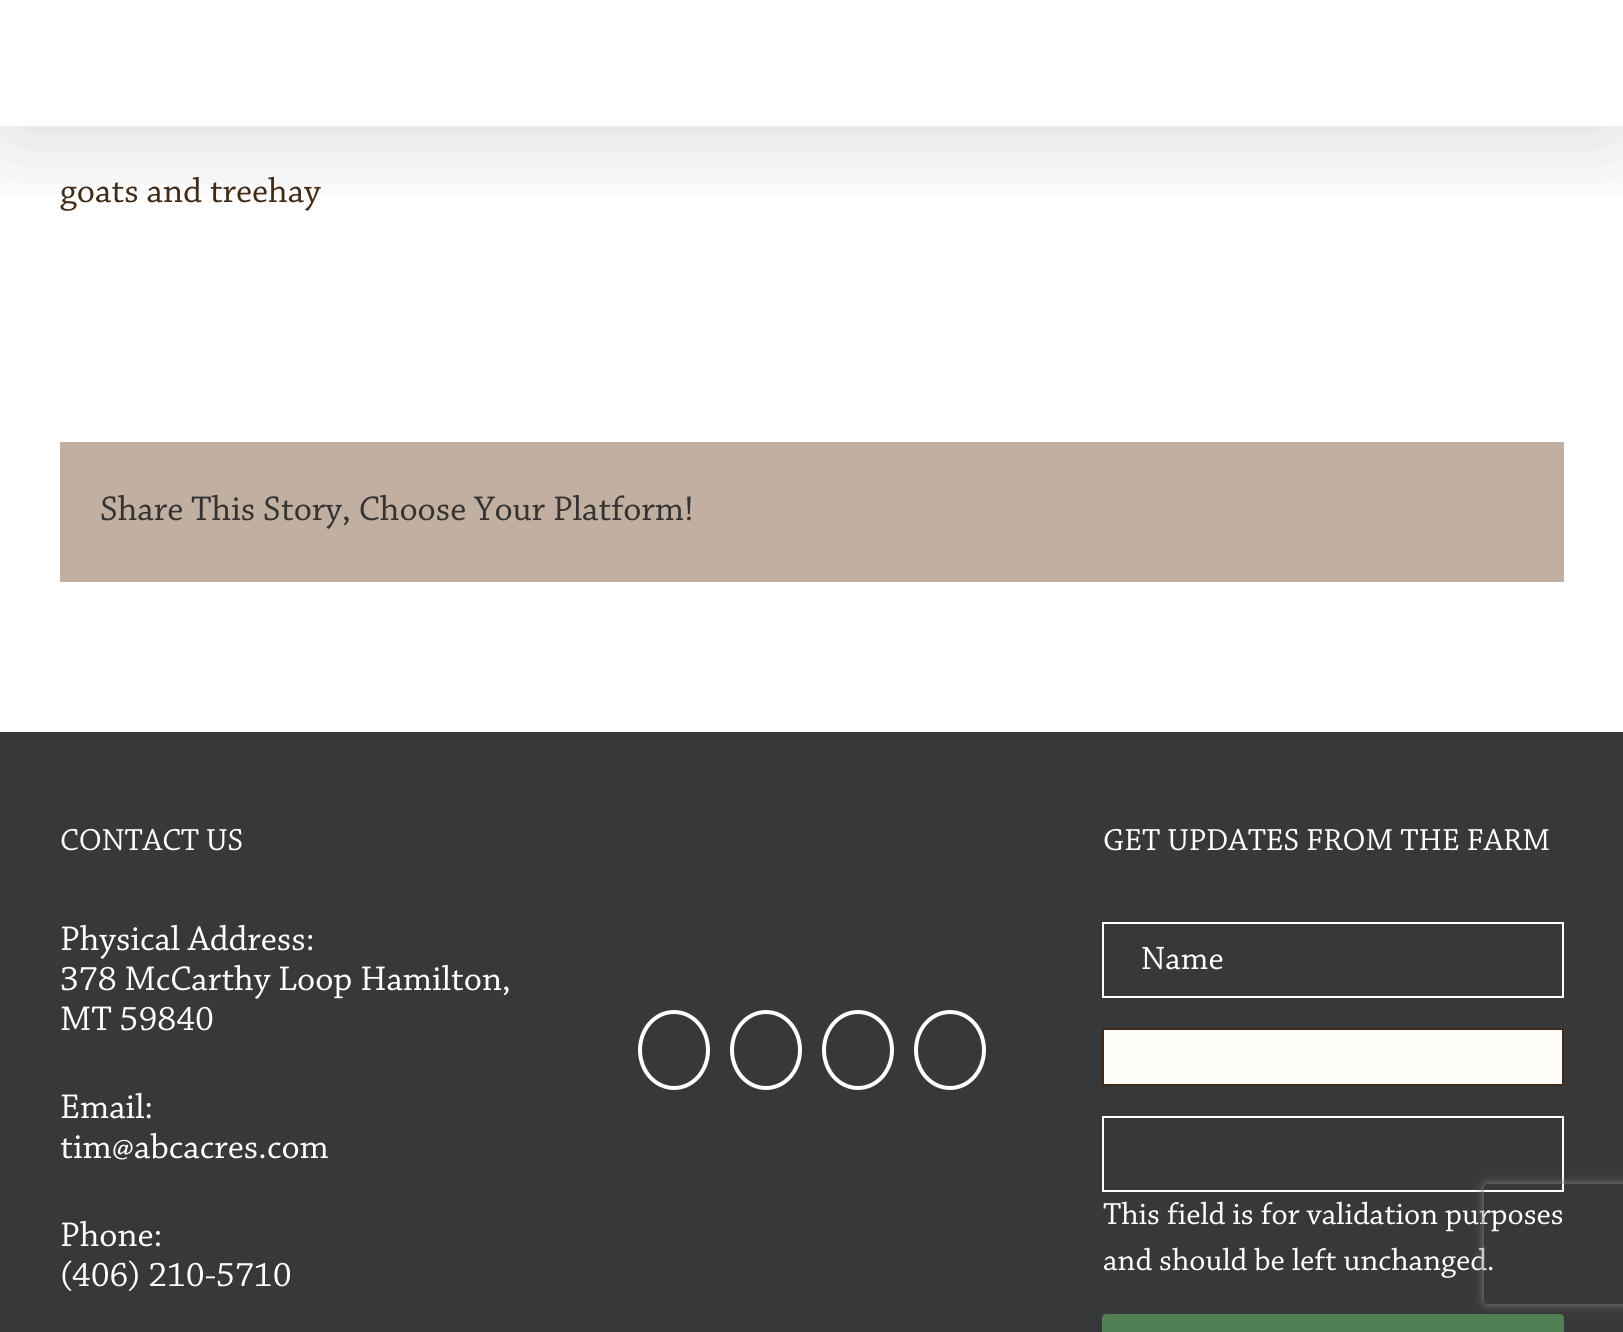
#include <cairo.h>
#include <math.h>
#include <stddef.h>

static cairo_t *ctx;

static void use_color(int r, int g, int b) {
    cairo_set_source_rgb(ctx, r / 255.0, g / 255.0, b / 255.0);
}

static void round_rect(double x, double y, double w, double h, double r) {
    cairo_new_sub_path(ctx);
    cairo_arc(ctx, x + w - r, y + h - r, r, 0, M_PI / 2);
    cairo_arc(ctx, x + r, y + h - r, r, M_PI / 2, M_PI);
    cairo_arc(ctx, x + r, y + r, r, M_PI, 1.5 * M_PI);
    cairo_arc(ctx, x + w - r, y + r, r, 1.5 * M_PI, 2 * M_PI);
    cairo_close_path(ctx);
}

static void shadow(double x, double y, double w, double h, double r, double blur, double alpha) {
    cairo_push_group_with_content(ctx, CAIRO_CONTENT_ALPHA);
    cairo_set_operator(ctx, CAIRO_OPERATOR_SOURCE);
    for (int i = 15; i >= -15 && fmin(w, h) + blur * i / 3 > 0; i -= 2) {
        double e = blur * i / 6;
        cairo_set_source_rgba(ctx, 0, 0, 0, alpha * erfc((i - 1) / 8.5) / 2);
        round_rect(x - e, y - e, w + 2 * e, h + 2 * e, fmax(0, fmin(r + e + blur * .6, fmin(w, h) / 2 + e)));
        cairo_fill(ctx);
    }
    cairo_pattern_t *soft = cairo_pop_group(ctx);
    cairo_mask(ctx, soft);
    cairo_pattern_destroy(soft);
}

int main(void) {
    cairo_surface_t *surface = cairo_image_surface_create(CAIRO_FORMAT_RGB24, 1623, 1332);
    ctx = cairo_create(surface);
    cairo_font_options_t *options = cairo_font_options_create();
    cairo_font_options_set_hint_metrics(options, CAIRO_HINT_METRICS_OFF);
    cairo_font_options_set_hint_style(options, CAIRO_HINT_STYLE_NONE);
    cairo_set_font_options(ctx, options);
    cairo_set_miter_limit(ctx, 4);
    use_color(255, 255, 255);
    cairo_paint(ctx);
    cairo_save(ctx);
    cairo_rectangle(ctx, 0, 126, 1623, 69);
    cairo_clip(ctx);
    use_color(0, 0, 0);
    shadow(4, 24, 1616, 118, 0, 50, 0.14);
    cairo_restore(ctx);
    cairo_select_font_face(ctx, "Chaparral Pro", CAIRO_FONT_SLANT_NORMAL, CAIRO_FONT_WEIGHT_NORMAL);
    cairo_set_font_size(ctx, 36);
    use_color(65, 43, 23);
    cairo_move_to(ctx, 60, 202);
    cairo_show_text(ctx, "goats and treehay");
    use_color(193, 175, 159);
    cairo_rectangle(ctx, 60, 442, 1504, 140);
    cairo_fill(ctx);
    use_color(51, 51, 51);
    cairo_move_to(ctx, 100, 520);
    cairo_show_text(ctx, "Share This Story, Choose Your Platform!");
    use_color(54, 56, 57);
    cairo_rectangle(ctx, 0, 732, 1623, 600);
    cairo_fill(ctx);
    cairo_set_font_size(ctx, 32);
    use_color(255, 255, 255);
    cairo_move_to(ctx, 60, 850);
    cairo_show_text(ctx, "CONTACT US");
    cairo_set_font_size(ctx, 36);
    cairo_move_to(ctx, 60, 950);
    cairo_show_text(ctx, "Physical Address:");
    cairo_move_to(ctx, 60, 990);
    cairo_show_text(ctx, "378 McCarthy Loop Hamilton,");
    cairo_move_to(ctx, 60, 1030);
    cairo_show_text(ctx, "MT 59840");
    cairo_move_to(ctx, 60, 1118);
    cairo_show_text(ctx, "Email:");
    cairo_move_to(ctx, 60, 1158);
    cairo_show_text(ctx, "tim@abcacres.com");
    cairo_move_to(ctx, 60, 1246);
    cairo_show_text(ctx, "Phone:");
    cairo_move_to(ctx, 60, 1286);
    cairo_show_text(ctx, "(406) 210-5710");
    cairo_new_path(ctx);
    cairo_move_to(ctx, 674, 1012);
    cairo_curve_to(ctx, 693, 1012, 708, 1029, 708, 1050);
    cairo_curve_to(ctx, 708, 1071, 693, 1088, 674, 1088);
    cairo_curve_to(ctx, 655, 1088, 640, 1071, 640, 1050);
    cairo_curve_to(ctx, 640, 1029, 655, 1012, 674, 1012);
    cairo_close_path(ctx);
    cairo_set_line_width(ctx, 4);
    cairo_stroke(ctx);
    cairo_new_path(ctx);
    cairo_move_to(ctx, 766, 1012);
    cairo_curve_to(ctx, 785, 1012, 800, 1029, 800, 1050);
    cairo_curve_to(ctx, 800, 1071, 785, 1088, 766, 1088);
    cairo_curve_to(ctx, 747, 1088, 732, 1071, 732, 1050);
    cairo_curve_to(ctx, 732, 1029, 747, 1012, 766, 1012);
    cairo_close_path(ctx);
    cairo_stroke(ctx);
    cairo_new_path(ctx);
    cairo_move_to(ctx, 858, 1012);
    cairo_curve_to(ctx, 877, 1012, 892, 1029, 892, 1050);
    cairo_curve_to(ctx, 892, 1071, 877, 1088, 858, 1088);
    cairo_curve_to(ctx, 839, 1088, 824, 1071, 824, 1050);
    cairo_curve_to(ctx, 824, 1029, 839, 1012, 858, 1012);
    cairo_close_path(ctx);
    cairo_stroke(ctx);
    cairo_new_path(ctx);
    cairo_move_to(ctx, 950, 1012);
    cairo_curve_to(ctx, 969, 1012, 984, 1029, 984, 1050);
    cairo_curve_to(ctx, 984, 1071, 969, 1088, 950, 1088);
    cairo_curve_to(ctx, 931, 1088, 916, 1071, 916, 1050);
    cairo_curve_to(ctx, 916, 1029, 931, 1012, 950, 1012);
    cairo_close_path(ctx);
    cairo_stroke(ctx);
    cairo_set_font_size(ctx, 32);
    cairo_move_to(ctx, 1103, 850);
    cairo_show_text(ctx, "GET UPDATES FROM THE FARM");
    cairo_rectangle(ctx, 1103, 923, 460, 74);
    cairo_set_line_width(ctx, 2);
    cairo_stroke(ctx);
    cairo_set_font_size(ctx, 34);
    cairo_move_to(ctx, 1141, 969);
    cairo_show_text(ctx, "Name");
    use_color(255, 253, 249);
    cairo_rectangle(ctx, 1103, 1029, 460, 56);
    cairo_fill_preserve(ctx);
    use_color(65, 43, 23);
    cairo_stroke(ctx);
    cairo_rectangle(ctx, 1103, 1117, 460, 74);
    use_color(255, 255, 255);
    cairo_stroke(ctx);
    cairo_set_font_size(ctx, 32);
    cairo_move_to(ctx, 1103, 1224);
    cairo_show_text(ctx, "This field is for validation purposes");
    cairo_move_to(ctx, 1103, 1270);
    cairo_show_text(ctx, "and should be left unchanged.");
    use_color(81, 128, 84);
    round_rect(1102, 1314, 462, 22, 4);
    cairo_fill(ctx);
    cairo_save(ctx);
    cairo_set_fill_rule(ctx, CAIRO_FILL_RULE_EVEN_ODD);
    cairo_new_path(ctx);
    cairo_move_to(ctx, 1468, 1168);
    cairo_line_to(ctx, 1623, 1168);
    cairo_line_to(ctx, 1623, 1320);
    cairo_line_to(ctx, 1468, 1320);
    cairo_close_path(ctx);
    cairo_move_to(ctx, 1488, 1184);
    cairo_line_to(ctx, 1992, 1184);
    cairo_curve_to(ctx, 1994, 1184, 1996, 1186, 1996, 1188);
    cairo_line_to(ctx, 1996, 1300);
    cairo_curve_to(ctx, 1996, 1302, 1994, 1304, 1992, 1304);
    cairo_line_to(ctx, 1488, 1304);
    cairo_curve_to(ctx, 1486, 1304, 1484, 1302, 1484, 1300);
    cairo_line_to(ctx, 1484, 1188);
    cairo_curve_to(ctx, 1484, 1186, 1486, 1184, 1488, 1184);
    cairo_close_path(ctx);
    cairo_clip(ctx);
    use_color(128, 128, 128);
    shadow(1484, 1184, 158, 120, 4, 5, 1);
    cairo_restore(ctx);
    cairo_surface_write_to_png(surface, "result.png");
    cairo_font_options_destroy(options);
    cairo_destroy(ctx);
    cairo_surface_destroy(surface);
    return 0;
}
